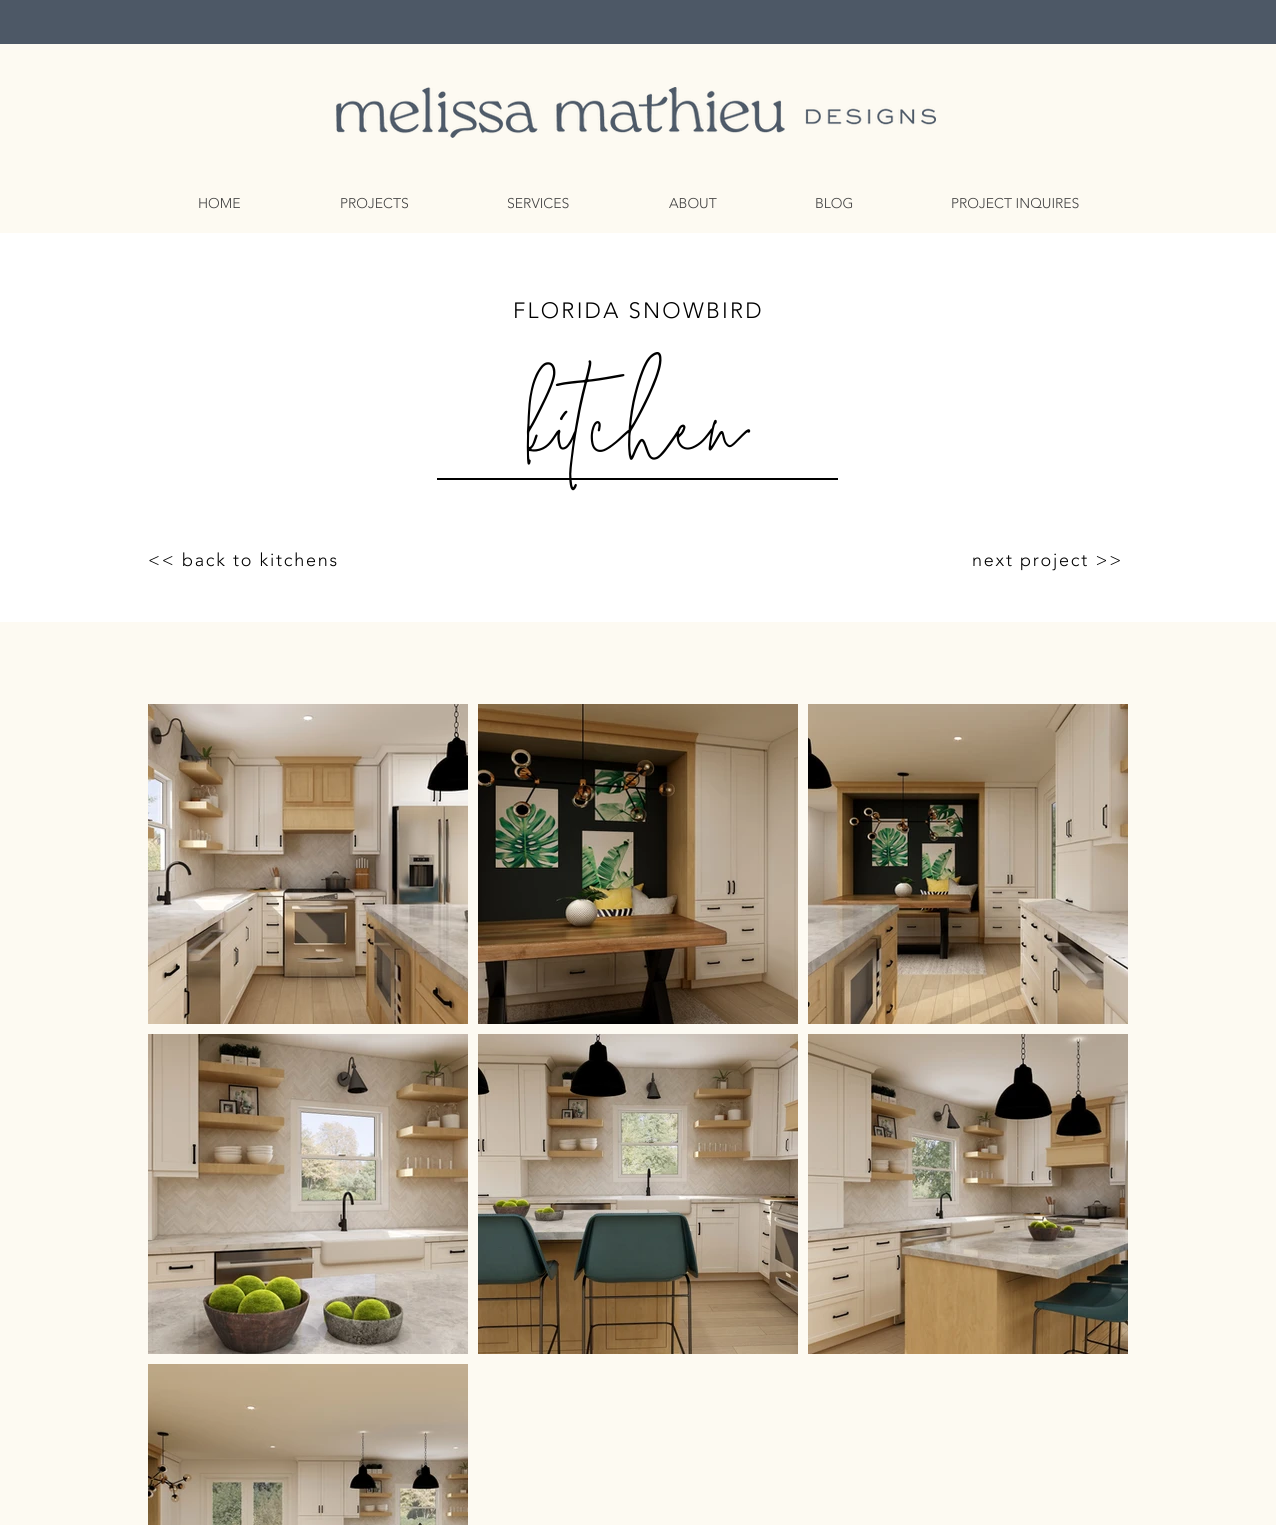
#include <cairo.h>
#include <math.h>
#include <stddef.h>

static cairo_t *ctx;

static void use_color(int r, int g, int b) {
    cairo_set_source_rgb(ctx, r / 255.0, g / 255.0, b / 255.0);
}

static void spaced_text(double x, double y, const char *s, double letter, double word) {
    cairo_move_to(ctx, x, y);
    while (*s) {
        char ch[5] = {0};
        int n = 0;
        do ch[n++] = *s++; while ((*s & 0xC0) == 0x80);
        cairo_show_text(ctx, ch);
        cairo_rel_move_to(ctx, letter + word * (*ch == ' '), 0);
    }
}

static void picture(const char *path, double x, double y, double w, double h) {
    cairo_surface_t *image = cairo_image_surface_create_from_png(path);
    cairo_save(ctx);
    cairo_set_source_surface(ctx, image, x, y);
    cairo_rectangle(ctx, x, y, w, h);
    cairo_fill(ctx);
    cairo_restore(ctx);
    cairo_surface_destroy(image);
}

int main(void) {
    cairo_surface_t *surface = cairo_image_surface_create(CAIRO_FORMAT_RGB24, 1276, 1525);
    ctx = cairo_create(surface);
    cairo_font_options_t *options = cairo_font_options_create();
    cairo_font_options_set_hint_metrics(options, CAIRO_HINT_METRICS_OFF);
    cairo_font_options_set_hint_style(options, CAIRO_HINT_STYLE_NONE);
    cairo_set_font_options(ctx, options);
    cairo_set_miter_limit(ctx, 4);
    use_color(253, 250, 242);
    cairo_paint(ctx);
    use_color(77, 88, 102);
    cairo_rectangle(ctx, 0, 0, 1276, 44);
    cairo_fill(ctx);
    picture("img1.png", 336, 87, 600, 51);
    cairo_select_font_face(ctx, "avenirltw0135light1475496 Light", CAIRO_FONT_SLANT_NORMAL, CAIRO_FONT_WEIGHT_NORMAL);
    cairo_set_font_size(ctx, 14);
    use_color(64, 64, 64);
    cairo_move_to(ctx, 198, 208);
    cairo_show_text(ctx, "HOME");
    cairo_move_to(ctx, 340, 208);
    cairo_show_text(ctx, "PROJECTS");
    cairo_move_to(ctx, 507, 208);
    cairo_show_text(ctx, "SERVICES");
    cairo_move_to(ctx, 669, 208);
    cairo_show_text(ctx, "ABOUT");
    cairo_move_to(ctx, 815, 208);
    cairo_show_text(ctx, "BLOG");
    cairo_move_to(ctx, 951, 208);
    cairo_show_text(ctx, "PROJECT INQUIRES");
    use_color(255, 255, 255);
    cairo_rectangle(ctx, 0, 233, 1276, 389);
    cairo_fill(ctx);
    cairo_set_font_size(ctx, 22);
    use_color(0, 0, 0);
    spaced_text(513, 318, "FLORIDA SNOWBIRD", 2.25, 0);
    picture("img2.png", 526, 352, 225, 139);
    cairo_rectangle(ctx, 437, 478, 401, 2);
    cairo_fill(ctx);
    cairo_set_font_size(ctx, 18);
    spaced_text(148, 566, "<< back to kitchens", 1.75, 0);
    spaced_text(972, 566, "next project >>", 1.75, 0);
    picture("img3.png", 148, 704, 320, 320);
    picture("img4.png", 478, 704, 320, 320);
    picture("img5.png", 808, 704, 320, 320);
    picture("img6.png", 148, 1034, 320, 320);
    picture("img7.png", 478, 1034, 320, 320);
    picture("img8.png", 808, 1034, 320, 320);
    picture("img9.png", 148, 1364, 320, 161);
    cairo_surface_write_to_png(surface, "result.png");
    cairo_font_options_destroy(options);
    cairo_destroy(ctx);
    cairo_surface_destroy(surface);
    return 0;
}
